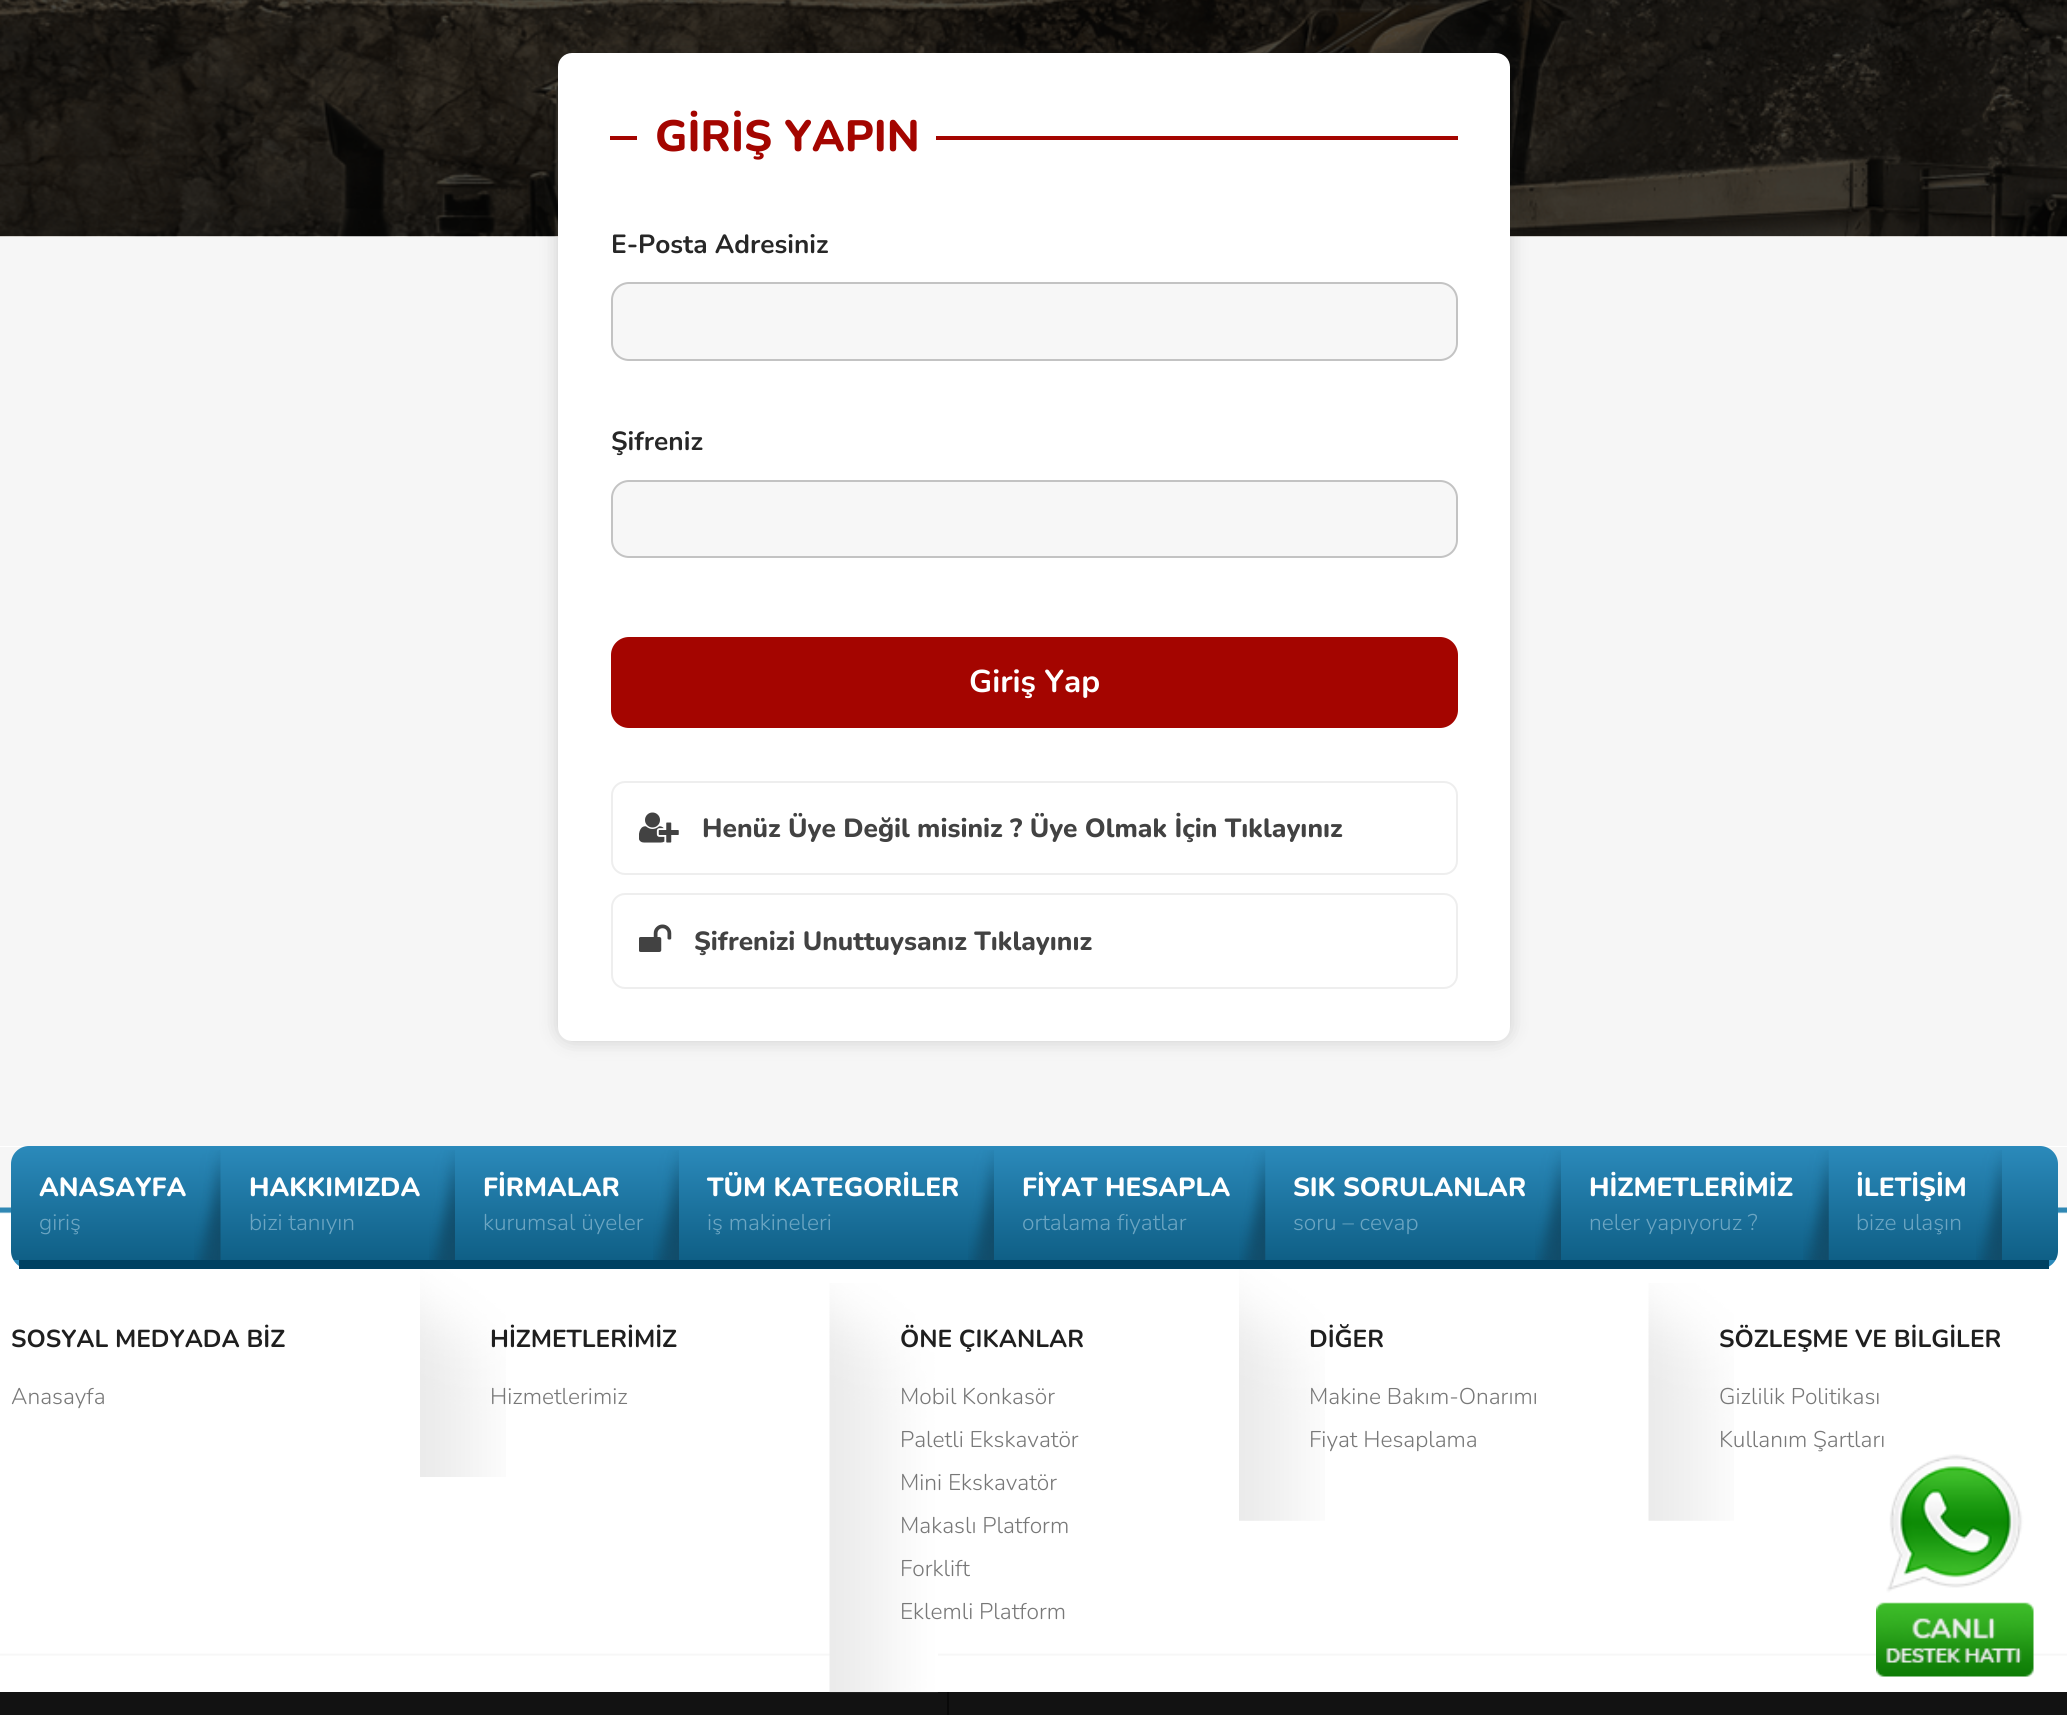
#include <cairo.h>
#include <math.h>
#include <stddef.h>

static cairo_t *ctx;

static void use_color(int r, int g, int b) {
    cairo_set_source_rgb(ctx, r / 255.0, g / 255.0, b / 255.0);
}

static void round_rect(double x, double y, double w, double h, double r) {
    cairo_new_sub_path(ctx);
    cairo_arc(ctx, x + w - r, y + h - r, r, 0, M_PI / 2);
    cairo_arc(ctx, x + r, y + h - r, r, M_PI / 2, M_PI);
    cairo_arc(ctx, x + r, y + r, r, M_PI, 1.5 * M_PI);
    cairo_arc(ctx, x + w - r, y + r, r, 1.5 * M_PI, 2 * M_PI);
    cairo_close_path(ctx);
}

static void shadow(double x, double y, double w, double h, double r, double blur, double alpha) {
    cairo_push_group_with_content(ctx, CAIRO_CONTENT_ALPHA);
    cairo_set_operator(ctx, CAIRO_OPERATOR_SOURCE);
    for (int i = 15; i >= -15 && fmin(w, h) + blur * i / 3 > 0; i -= 2) {
        double e = blur * i / 6;
        cairo_set_source_rgba(ctx, 0, 0, 0, alpha * erfc((i - 1) / 8.5) / 2);
        round_rect(x - e, y - e, w + 2 * e, h + 2 * e, fmax(0, fmin(r + e + blur * .6, fmin(w, h) / 2 + e)));
        cairo_fill(ctx);
    }
    cairo_pattern_t *soft = cairo_pop_group(ctx);
    cairo_mask(ctx, soft);
    cairo_pattern_destroy(soft);
}

static void picture(const char *path, double x, double y, double w, double h) {
    cairo_surface_t *image = cairo_image_surface_create_from_png(path);
    cairo_save(ctx);
    cairo_set_source_surface(ctx, image, x, y);
    cairo_rectangle(ctx, x, y, w, h);
    cairo_fill(ctx);
    cairo_restore(ctx);
    cairo_surface_destroy(image);
}

int main(void) {
    cairo_surface_t *surface = cairo_image_surface_create(CAIRO_FORMAT_RGB24, 2067, 1715);
    ctx = cairo_create(surface);
    cairo_font_options_t *options = cairo_font_options_create();
    cairo_font_options_set_hint_metrics(options, CAIRO_HINT_METRICS_OFF);
    cairo_font_options_set_hint_style(options, CAIRO_HINT_STYLE_NONE);
    cairo_set_font_options(ctx, options);
    cairo_set_miter_limit(ctx, 4);
    cairo_pattern_t *gradient;
    use_color(246, 246, 246);
    cairo_paint(ctx);
    picture("img1.png", 0, 0, 2067, 237);
    use_color(33, 33, 33);
    shadow(558, 53, 952, 988, 14, 9, 0.2);
    use_color(255, 255, 255);
    round_rect(558, 53, 952, 988, 14);
    cairo_fill(ctx);
    use_color(164, 5, 0);
    cairo_rectangle(ctx, 610, 136, 848, 4);
    cairo_fill(ctx);
    use_color(255, 255, 255);
    cairo_rectangle(ctx, 637, 136, 299, 4);
    cairo_fill(ctx);
    cairo_select_font_face(ctx, "Nunito ExtraBold", CAIRO_FONT_SLANT_NORMAL, CAIRO_FONT_WEIGHT_NORMAL);
    cairo_set_font_size(ctx, 43.75);
    use_color(164, 5, 0);
    cairo_move_to(ctx, 655, 151);
    cairo_show_text(ctx, "GİRİŞ YAPIN");
    cairo_select_font_face(ctx, "Nunito", CAIRO_FONT_SLANT_NORMAL, CAIRO_FONT_WEIGHT_BOLD);
    cairo_set_font_size(ctx, 26.25);
    use_color(39, 39, 39);
    cairo_move_to(ctx, 611, 253);
    cairo_show_text(ctx, "E-Posta Adresiniz");
    use_color(247, 247, 247);
    round_rect(612, 283, 845, 77, 17);
    cairo_fill_preserve(ctx);
    use_color(195, 195, 195);
    cairo_stroke(ctx);
    use_color(39, 39, 39);
    cairo_move_to(ctx, 611, 450);
    cairo_show_text(ctx, "Şifreniz");
    use_color(247, 247, 247);
    round_rect(612, 481, 845, 76, 17);
    cairo_fill_preserve(ctx);
    use_color(195, 195, 195);
    cairo_stroke(ctx);
    use_color(164, 5, 0);
    round_rect(612, 638, 845, 89, 17);
    cairo_fill_preserve(ctx);
    cairo_stroke(ctx);
    cairo_set_font_size(ctx, 31.5);
    use_color(255, 255, 255);
    cairo_move_to(ctx, 969, 692);
    cairo_show_text(ctx, "Giriş Yap");
    round_rect(612, 782, 845, 92, 13);
    use_color(238, 238, 238);
    cairo_stroke(ctx);
    picture("img2.png", 639, 812, 40, 31);
    cairo_select_font_face(ctx, "Nunito ExtraBold", CAIRO_FONT_SLANT_NORMAL, CAIRO_FONT_WEIGHT_NORMAL);
    cairo_set_font_size(ctx, 26.25);
    use_color(66, 66, 66);
    cairo_move_to(ctx, 702, 837);
    cairo_show_text(ctx, "Henüz Üye Değil misiniz ? Üye Olmak İçin Tıklayınız");
    round_rect(612, 894, 845, 94, 13);
    use_color(238, 238, 238);
    cairo_stroke(ctx);
    picture("img3.png", 639, 924, 33, 28);
    use_color(66, 66, 66);
    cairo_move_to(ctx, 694, 950);
    cairo_show_text(ctx, "Şifrenizi Unuttuysanız Tıklayınız");
    use_color(255, 255, 255);
    cairo_rectangle(ctx, 0, 1146, 2067, 546);
    cairo_fill(ctx);
    picture("img4.png", 0, 1147, 2067, 509);
    cairo_save(ctx);
    round_rect(11, 1146, 2047, 123, 18);
    cairo_clip(ctx);
    gradient = cairo_pattern_create_linear(1034, 1146, 1034, 1260);
    cairo_pattern_add_color_stop_rgba(gradient, 0, 0.169, 0.541, 0.733, 1);
    cairo_pattern_add_color_stop_rgba(gradient, 1, 0.059, 0.373, 0.525, 1);
    cairo_set_source(ctx, gradient);
    cairo_pattern_destroy(gradient);
    cairo_new_path(ctx);
    cairo_move_to(ctx, 29, 1146);
    cairo_line_to(ctx, 2040, 1146);
    cairo_curve_to(ctx, 2050, 1146, 2058, 1154, 2058, 1164);
    cairo_line_to(ctx, 2058, 1260);
    cairo_line_to(ctx, 11, 1260);
    cairo_line_to(ctx, 11, 1164);
    cairo_curve_to(ctx, 11, 1154, 19, 1146, 29, 1146);
    cairo_close_path(ctx);
    cairo_fill(ctx);
    gradient = cairo_pattern_create_linear(1034, 1260, 1034, 1374);
    cairo_pattern_add_color_stop_rgba(gradient, 0, 0.169, 0.541, 0.733, 1);
    cairo_pattern_add_color_stop_rgba(gradient, 1, 0.059, 0.373, 0.525, 1);
    cairo_set_source(ctx, gradient);
    cairo_pattern_destroy(gradient);
    cairo_rectangle(ctx, 13, 1260, 2043, 7);
    cairo_fill(ctx);
    cairo_restore(ctx);
    use_color(0, 65, 97);
    cairo_rectangle(ctx, 19, 1260, 2030, 9);
    cairo_fill(ctx);
    picture("img5.png", 194, 1150, 27, 110);
    use_color(255, 255, 255);
    cairo_move_to(ctx, 39, 1196);
    cairo_show_text(ctx, "ANASAYFA");
    cairo_select_font_face(ctx, "Nunito Light", CAIRO_FONT_SLANT_NORMAL, CAIRO_FONT_WEIGHT_NORMAL);
    cairo_set_font_size(ctx, 22.75);
    use_color(107, 165, 194);
    cairo_move_to(ctx, 39, 1230);
    cairo_show_text(ctx, "giriş");
    picture("img6.png", 429, 1150, 26, 110);
    cairo_select_font_face(ctx, "Nunito ExtraBold", CAIRO_FONT_SLANT_NORMAL, CAIRO_FONT_WEIGHT_NORMAL);
    cairo_set_font_size(ctx, 26.25);
    use_color(255, 255, 255);
    cairo_move_to(ctx, 249, 1196);
    cairo_show_text(ctx, "HAKKIMIZDA");
    cairo_select_font_face(ctx, "Nunito Light", CAIRO_FONT_SLANT_NORMAL, CAIRO_FONT_WEIGHT_NORMAL);
    cairo_set_font_size(ctx, 22.75);
    use_color(107, 165, 194);
    cairo_move_to(ctx, 249, 1230);
    cairo_show_text(ctx, "bizi tanıyın");
    picture("img6.png", 653, 1150, 26, 110);
    cairo_select_font_face(ctx, "Nunito ExtraBold", CAIRO_FONT_SLANT_NORMAL, CAIRO_FONT_WEIGHT_NORMAL);
    cairo_set_font_size(ctx, 26.25);
    use_color(255, 255, 255);
    cairo_move_to(ctx, 483, 1196);
    cairo_show_text(ctx, "FİRMALAR");
    cairo_select_font_face(ctx, "Nunito Light", CAIRO_FONT_SLANT_NORMAL, CAIRO_FONT_WEIGHT_NORMAL);
    cairo_set_font_size(ctx, 22.75);
    use_color(107, 165, 194);
    cairo_move_to(ctx, 483, 1230);
    cairo_show_text(ctx, "kurumsal üyeler");
    picture("img6.png", 968, 1150, 26, 110);
    cairo_select_font_face(ctx, "Nunito ExtraBold", CAIRO_FONT_SLANT_NORMAL, CAIRO_FONT_WEIGHT_NORMAL);
    cairo_set_font_size(ctx, 26.25);
    use_color(255, 255, 255);
    cairo_move_to(ctx, 707, 1196);
    cairo_show_text(ctx, "TÜM KATEGORİLER");
    cairo_select_font_face(ctx, "Nunito Light", CAIRO_FONT_SLANT_NORMAL, CAIRO_FONT_WEIGHT_NORMAL);
    cairo_set_font_size(ctx, 22.75);
    use_color(107, 165, 194);
    cairo_move_to(ctx, 707, 1230);
    cairo_show_text(ctx, "iş makineleri");
    picture("img7.png", 1239, 1150, 27, 110);
    cairo_select_font_face(ctx, "Nunito ExtraBold", CAIRO_FONT_SLANT_NORMAL, CAIRO_FONT_WEIGHT_NORMAL);
    cairo_set_font_size(ctx, 26.25);
    use_color(255, 255, 255);
    cairo_move_to(ctx, 1022, 1196);
    cairo_show_text(ctx, "FİYAT HESAPLA");
    cairo_select_font_face(ctx, "Nunito Light", CAIRO_FONT_SLANT_NORMAL, CAIRO_FONT_WEIGHT_NORMAL);
    cairo_set_font_size(ctx, 22.75);
    use_color(107, 165, 194);
    cairo_move_to(ctx, 1022, 1230);
    cairo_show_text(ctx, "ortalama fiyatlar");
    picture("img6.png", 1535, 1150, 26, 110);
    cairo_select_font_face(ctx, "Nunito ExtraBold", CAIRO_FONT_SLANT_NORMAL, CAIRO_FONT_WEIGHT_NORMAL);
    cairo_set_font_size(ctx, 26.25);
    use_color(255, 255, 255);
    cairo_move_to(ctx, 1293, 1196);
    cairo_show_text(ctx, "SIK SORULANLAR");
    cairo_select_font_face(ctx, "Nunito Light", CAIRO_FONT_SLANT_NORMAL, CAIRO_FONT_WEIGHT_NORMAL);
    cairo_set_font_size(ctx, 22.75);
    use_color(107, 165, 194);
    cairo_move_to(ctx, 1293, 1230);
    cairo_show_text(ctx, "soru – cevap");
    picture("img8.png", 1803, 1150, 26, 110);
    cairo_select_font_face(ctx, "Nunito ExtraBold", CAIRO_FONT_SLANT_NORMAL, CAIRO_FONT_WEIGHT_NORMAL);
    cairo_set_font_size(ctx, 26.25);
    use_color(255, 255, 255);
    cairo_move_to(ctx, 1589, 1196);
    cairo_show_text(ctx, "HİZMETLERİMİZ");
    cairo_select_font_face(ctx, "Nunito Light", CAIRO_FONT_SLANT_NORMAL, CAIRO_FONT_WEIGHT_NORMAL);
    cairo_set_font_size(ctx, 22.75);
    use_color(107, 165, 194);
    cairo_move_to(ctx, 1589, 1230);
    cairo_show_text(ctx, "neler yapıyoruz ?");
    picture("img9.png", 1976, 1150, 26, 110);
    cairo_select_font_face(ctx, "Nunito ExtraBold", CAIRO_FONT_SLANT_NORMAL, CAIRO_FONT_WEIGHT_NORMAL);
    cairo_set_font_size(ctx, 26.25);
    use_color(255, 255, 255);
    cairo_move_to(ctx, 1856, 1196);
    cairo_show_text(ctx, "İLETİŞİM");
    cairo_select_font_face(ctx, "Nunito Light", CAIRO_FONT_SLANT_NORMAL, CAIRO_FONT_WEIGHT_NORMAL);
    cairo_set_font_size(ctx, 22.75);
    use_color(107, 165, 194);
    cairo_move_to(ctx, 1856, 1230);
    cairo_show_text(ctx, "bize ulaşın");
    cairo_select_font_face(ctx, "Nunito", CAIRO_FONT_SLANT_NORMAL, CAIRO_FONT_WEIGHT_BOLD);
    cairo_set_font_size(ctx, 24.5);
    use_color(31, 31, 31);
    cairo_move_to(ctx, 11, 1347);
    cairo_show_text(ctx, "SOSYAL MEDYADA BİZ");
    cairo_select_font_face(ctx, "Nunito Light", CAIRO_FONT_SLANT_NORMAL, CAIRO_FONT_WEIGHT_NORMAL);
    cairo_set_font_size(ctx, 22.75);
    use_color(120, 120, 120);
    cairo_move_to(ctx, 11, 1404);
    cairo_show_text(ctx, "Anasayfa");
    picture("img10.png", 420, 1269, 86, 208);
    cairo_select_font_face(ctx, "Nunito", CAIRO_FONT_SLANT_NORMAL, CAIRO_FONT_WEIGHT_BOLD);
    cairo_set_font_size(ctx, 24.5);
    use_color(31, 31, 31);
    cairo_move_to(ctx, 490, 1347);
    cairo_show_text(ctx, "HİZMETLERİMİZ");
    cairo_select_font_face(ctx, "Nunito Light", CAIRO_FONT_SLANT_NORMAL, CAIRO_FONT_WEIGHT_NORMAL);
    cairo_set_font_size(ctx, 22.75);
    use_color(120, 120, 120);
    cairo_move_to(ctx, 490, 1404);
    cairo_show_text(ctx, "Hizmetlerimiz");
    use_color(18, 18, 18);
    cairo_rectangle(ctx, 0, 1692, 2067, 23);
    cairo_fill(ctx);
    picture("img11.png", 829, 1283, 109, 410);
    cairo_select_font_face(ctx, "Nunito", CAIRO_FONT_SLANT_NORMAL, CAIRO_FONT_WEIGHT_BOLD);
    cairo_set_font_size(ctx, 24.5);
    use_color(31, 31, 31);
    cairo_move_to(ctx, 900, 1347);
    cairo_show_text(ctx, "ÖNE ÇIKANLAR");
    cairo_select_font_face(ctx, "Nunito Light", CAIRO_FONT_SLANT_NORMAL, CAIRO_FONT_WEIGHT_NORMAL);
    cairo_set_font_size(ctx, 22.75);
    use_color(120, 120, 120);
    cairo_move_to(ctx, 900, 1404);
    cairo_show_text(ctx, "Mobil Konkasör");
    cairo_move_to(ctx, 900, 1447);
    cairo_show_text(ctx, "Paletli Ekskavatör");
    cairo_move_to(ctx, 900, 1490);
    cairo_show_text(ctx, "Mini Ekskavatör");
    cairo_move_to(ctx, 900, 1533);
    cairo_show_text(ctx, "Makaslı Platform");
    cairo_move_to(ctx, 900, 1576);
    cairo_show_text(ctx, "Forklift");
    cairo_move_to(ctx, 900, 1619);
    cairo_show_text(ctx, "Eklemli Platform");
    picture("img12.png", 1239, 1269, 86, 252);
    cairo_select_font_face(ctx, "Nunito", CAIRO_FONT_SLANT_NORMAL, CAIRO_FONT_WEIGHT_BOLD);
    cairo_set_font_size(ctx, 24.5);
    use_color(31, 31, 31);
    cairo_move_to(ctx, 1309, 1347);
    cairo_show_text(ctx, "DİĞER");
    cairo_select_font_face(ctx, "Nunito Light", CAIRO_FONT_SLANT_NORMAL, CAIRO_FONT_WEIGHT_NORMAL);
    cairo_set_font_size(ctx, 22.75);
    use_color(120, 120, 120);
    cairo_move_to(ctx, 1309, 1404);
    cairo_show_text(ctx, "Makine Bakım-Onarımı");
    cairo_move_to(ctx, 1309, 1447);
    cairo_show_text(ctx, "Fiyat Hesaplama");
    picture("img13.png", 1648, 1283, 86, 238);
    cairo_select_font_face(ctx, "Nunito", CAIRO_FONT_SLANT_NORMAL, CAIRO_FONT_WEIGHT_BOLD);
    cairo_set_font_size(ctx, 24.5);
    use_color(31, 31, 31);
    cairo_move_to(ctx, 1719, 1347);
    cairo_show_text(ctx, "SÖZLEŞME VE BİLGİLER");
    cairo_select_font_face(ctx, "Nunito Light", CAIRO_FONT_SLANT_NORMAL, CAIRO_FONT_WEIGHT_NORMAL);
    cairo_set_font_size(ctx, 22.75);
    use_color(120, 120, 120);
    cairo_move_to(ctx, 1719, 1404);
    cairo_show_text(ctx, "Gizlilik Politikası");
    cairo_move_to(ctx, 1719, 1447);
    cairo_show_text(ctx, "Kullanım Şartları");
    picture("img14.png", 1876, 1454, 158, 223);
    use_color(9, 9, 9);
    cairo_rectangle(ctx, 947, 1692, 2, 23);
    cairo_fill(ctx);
    cairo_surface_write_to_png(surface, "result.png");
    cairo_font_options_destroy(options);
    cairo_destroy(ctx);
    cairo_surface_destroy(surface);
    return 0;
}
